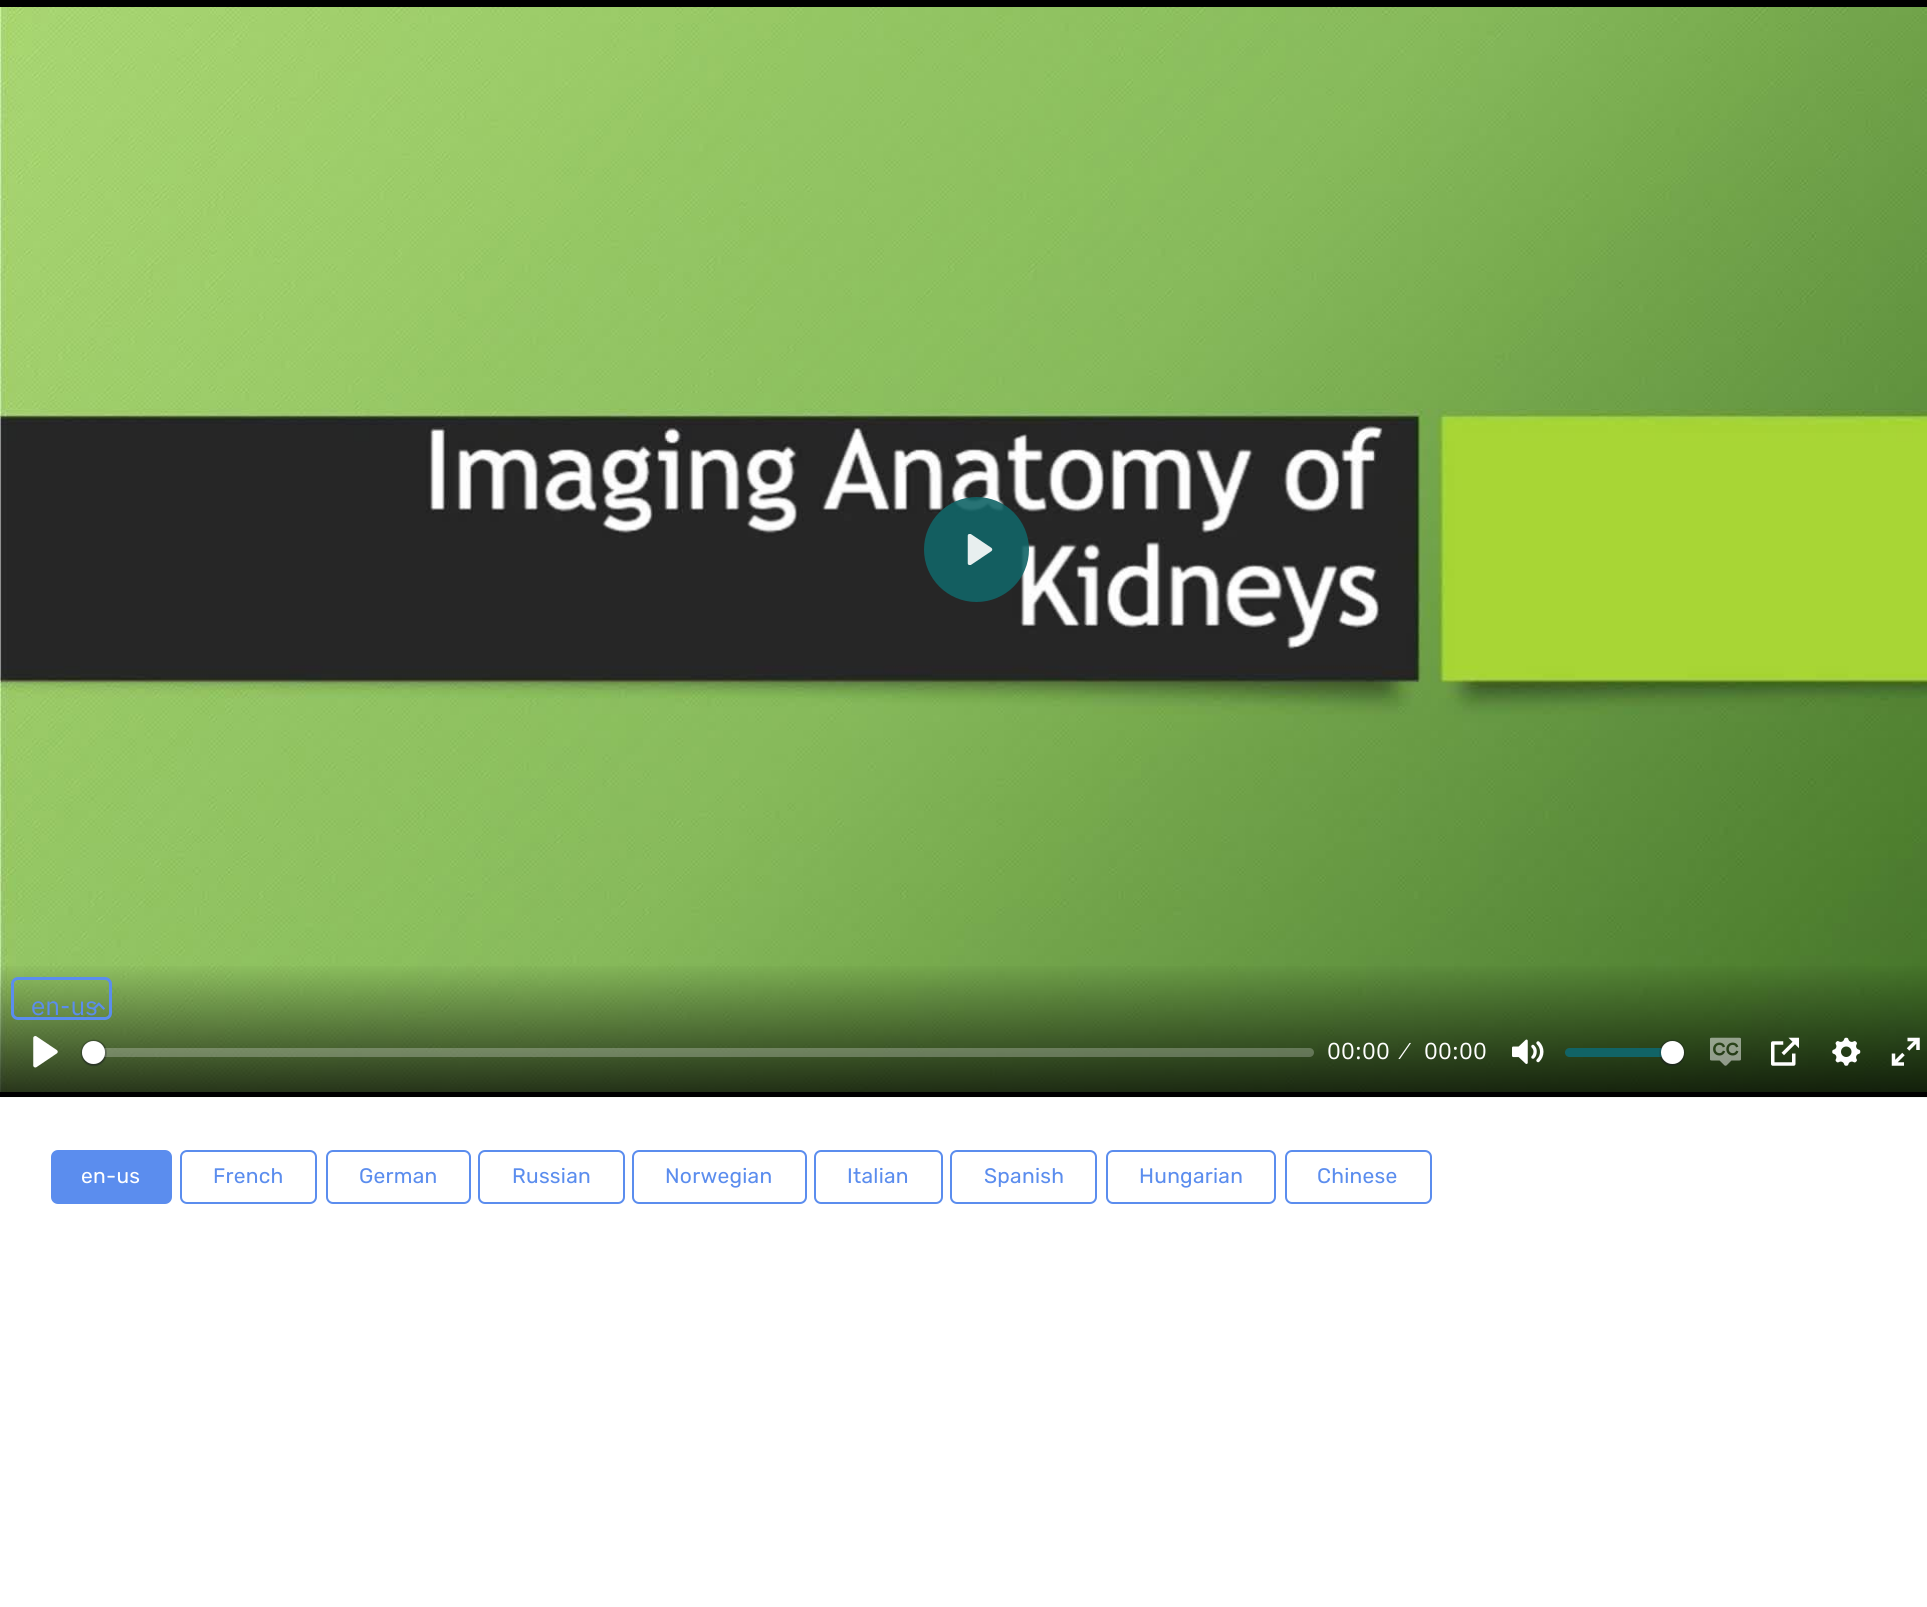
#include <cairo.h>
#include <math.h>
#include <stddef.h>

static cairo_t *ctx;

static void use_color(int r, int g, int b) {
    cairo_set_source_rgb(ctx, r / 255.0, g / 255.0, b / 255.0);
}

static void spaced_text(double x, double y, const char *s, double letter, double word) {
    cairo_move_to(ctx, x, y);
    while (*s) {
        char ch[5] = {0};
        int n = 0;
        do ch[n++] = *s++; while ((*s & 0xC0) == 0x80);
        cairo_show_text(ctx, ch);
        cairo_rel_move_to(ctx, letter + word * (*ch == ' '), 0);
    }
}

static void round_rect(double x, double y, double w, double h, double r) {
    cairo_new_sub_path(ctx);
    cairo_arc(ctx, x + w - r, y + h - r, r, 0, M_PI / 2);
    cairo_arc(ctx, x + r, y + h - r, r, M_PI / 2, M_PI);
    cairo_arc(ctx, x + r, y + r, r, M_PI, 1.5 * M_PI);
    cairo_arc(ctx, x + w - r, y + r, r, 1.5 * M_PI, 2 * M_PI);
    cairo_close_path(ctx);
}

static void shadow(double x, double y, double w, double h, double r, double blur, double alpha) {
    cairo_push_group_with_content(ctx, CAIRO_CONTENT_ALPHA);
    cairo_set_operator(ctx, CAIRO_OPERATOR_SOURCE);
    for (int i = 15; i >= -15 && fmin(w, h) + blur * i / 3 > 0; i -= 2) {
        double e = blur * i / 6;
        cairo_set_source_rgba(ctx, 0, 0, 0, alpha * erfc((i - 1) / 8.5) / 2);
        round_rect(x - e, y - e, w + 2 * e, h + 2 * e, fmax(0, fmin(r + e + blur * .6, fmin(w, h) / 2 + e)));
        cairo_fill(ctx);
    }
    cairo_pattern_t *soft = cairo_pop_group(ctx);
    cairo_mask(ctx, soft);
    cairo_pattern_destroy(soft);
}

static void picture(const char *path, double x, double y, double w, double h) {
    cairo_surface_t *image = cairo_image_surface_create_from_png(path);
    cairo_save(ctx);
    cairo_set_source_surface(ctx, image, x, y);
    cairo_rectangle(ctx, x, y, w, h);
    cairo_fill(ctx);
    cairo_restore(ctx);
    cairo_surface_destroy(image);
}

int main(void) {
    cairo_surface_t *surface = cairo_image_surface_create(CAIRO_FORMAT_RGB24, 1927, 1607);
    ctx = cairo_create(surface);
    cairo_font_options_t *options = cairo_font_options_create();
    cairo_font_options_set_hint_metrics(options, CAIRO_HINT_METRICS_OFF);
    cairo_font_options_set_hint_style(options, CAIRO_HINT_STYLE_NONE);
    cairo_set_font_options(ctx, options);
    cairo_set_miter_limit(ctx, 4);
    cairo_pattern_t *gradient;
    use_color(255, 255, 255);
    cairo_paint(ctx);
    use_color(0, 0, 0);
    cairo_rectangle(ctx, 0, 0, 1927, 1097);
    cairo_fill(ctx);
    picture("img1.png", 0, 7, 1927, 1085);
    picture("img2.png", 0, 1097, 1927, 1);
    cairo_set_source_rgba(ctx, 0.067, 0.392, 0.4, 0.9);
    cairo_arc(ctx, 976.5, 549.5, 52.5, 0, 2 * M_PI);
    cairo_fill(ctx);
    picture("img3.png", 967, 534, 26, 31);
    gradient = cairo_pattern_create_linear(976, 962, 976, 1097);
    cairo_pattern_add_color_stop_rgba(gradient, 0, 0, 0, 0, 0);
    cairo_pattern_add_color_stop_rgba(gradient, 1, 0, 0, 0, 0.75);
    cairo_set_source(ctx, gradient);
    cairo_pattern_destroy(gradient);
    cairo_rectangle(ctx, 0, 966, 1927, 126);
    cairo_fill(ctx);
    round_rect(12.5, 978.5, 98, 40, 5.5);
    use_color(91, 141, 238);
    cairo_set_line_width(ctx, 3);
    cairo_stroke(ctx);
    cairo_select_font_face(ctx, "IBM Plex Sans", CAIRO_FONT_SLANT_NORMAL, CAIRO_FONT_WEIGHT_NORMAL);
    cairo_set_font_size(ctx, 26);
    cairo_move_to(ctx, 31, 1015);
    cairo_show_text(ctx, "en-us");
    picture("img4.png", 93, 1002, 12, 8);
    picture("img5.png", 33, 1036, 25, 32);
    cairo_set_source_rgba(ctx, 1, 1, 1, 0.25);
    round_rect(82, 1048, 1232, 9, 4.5);
    cairo_fill(ctx);
    cairo_arc(ctx, 94, 1053, 12, 0, 2 * M_PI);
    cairo_set_source_rgba(ctx, 0.137, 0.157, 0.184, 0.2);
    cairo_set_line_width(ctx, 2);
    cairo_stroke(ctx);
    use_color(35, 40, 47);
    shadow(82, 1043, 23, 23, 11.5, 1, 0.15);
    use_color(255, 255, 255);
    cairo_arc(ctx, 93.5, 1052.5, 11.5, 0, 2 * M_PI);
    cairo_fill(ctx);
    cairo_set_font_size(ctx, 23);
    spaced_text(1327, 1059, "00:00", 0.25, 0);
    spaced_text(1403, 1059, "⁄", 0.25, 0);
    spaced_text(1424, 1059, "00:00", 0.25, 0);
    picture("img6.png", 1512, 1039, 32, 25);
    use_color(17, 100, 102);
    round_rect(1565, 1048, 119, 9, 4.5);
    cairo_fill(ctx);
    cairo_arc(ctx, 1672, 1053, 12, 0, 2 * M_PI);
    cairo_set_source_rgba(ctx, 0.137, 0.157, 0.184, 0.2);
    cairo_stroke(ctx);
    use_color(35, 40, 47);
    shadow(1661, 1043, 23, 23, 11.5, 1, 0.15);
    use_color(255, 255, 255);
    cairo_arc(ctx, 1672.5, 1052.5, 11.5, 0, 2 * M_PI);
    cairo_fill(ctx);
    picture("img7.png", 1710, 1037, 31, 29);
    picture("img8.png", 1771, 1037, 28, 29);
    picture("img9.png", 1832, 1037, 29, 29);
    picture("img10.png", 1891, 1037, 29, 29);
    use_color(91, 141, 238);
    round_rect(51, 1150, 121, 54, 7);
    cairo_fill(ctx);
    cairo_select_font_face(ctx, "Rubik", CAIRO_FONT_SLANT_NORMAL, CAIRO_FONT_WEIGHT_NORMAL);
    cairo_set_font_size(ctx, 21);
    use_color(255, 255, 255);
    spaced_text(81, 1183, "en-us", 0.25, 0);
    round_rect(181, 1151, 135, 52, 6);
    use_color(91, 141, 238);
    cairo_stroke(ctx);
    spaced_text(213, 1183, "French", 0.25, 0);
    round_rect(327, 1151, 143, 52, 6);
    cairo_stroke(ctx);
    spaced_text(359, 1183, "German", 0.25, 0);
    round_rect(479, 1151, 145, 52, 6);
    cairo_stroke(ctx);
    spaced_text(512, 1183, "Russian", 0.25, 0);
    round_rect(633, 1151, 173, 52, 6);
    cairo_stroke(ctx);
    spaced_text(665, 1183, "Norwegian", 0.25, 0);
    round_rect(815, 1151, 127, 52, 6);
    cairo_stroke(ctx);
    spaced_text(847, 1183, "Italian", 0.25, 0);
    round_rect(951, 1151, 145, 52, 6);
    cairo_stroke(ctx);
    spaced_text(984, 1183, "Spanish", 0.25, 0);
    round_rect(1107, 1151, 168, 52, 6);
    cairo_stroke(ctx);
    spaced_text(1139, 1183, "Hungarian", 0.25, 0);
    round_rect(1286, 1151, 145, 52, 6);
    cairo_stroke(ctx);
    spaced_text(1317, 1183, "Chinese", 0.25, 0);
    cairo_surface_write_to_png(surface, "result.png");
    cairo_font_options_destroy(options);
    cairo_destroy(ctx);
    cairo_surface_destroy(surface);
    return 0;
}
